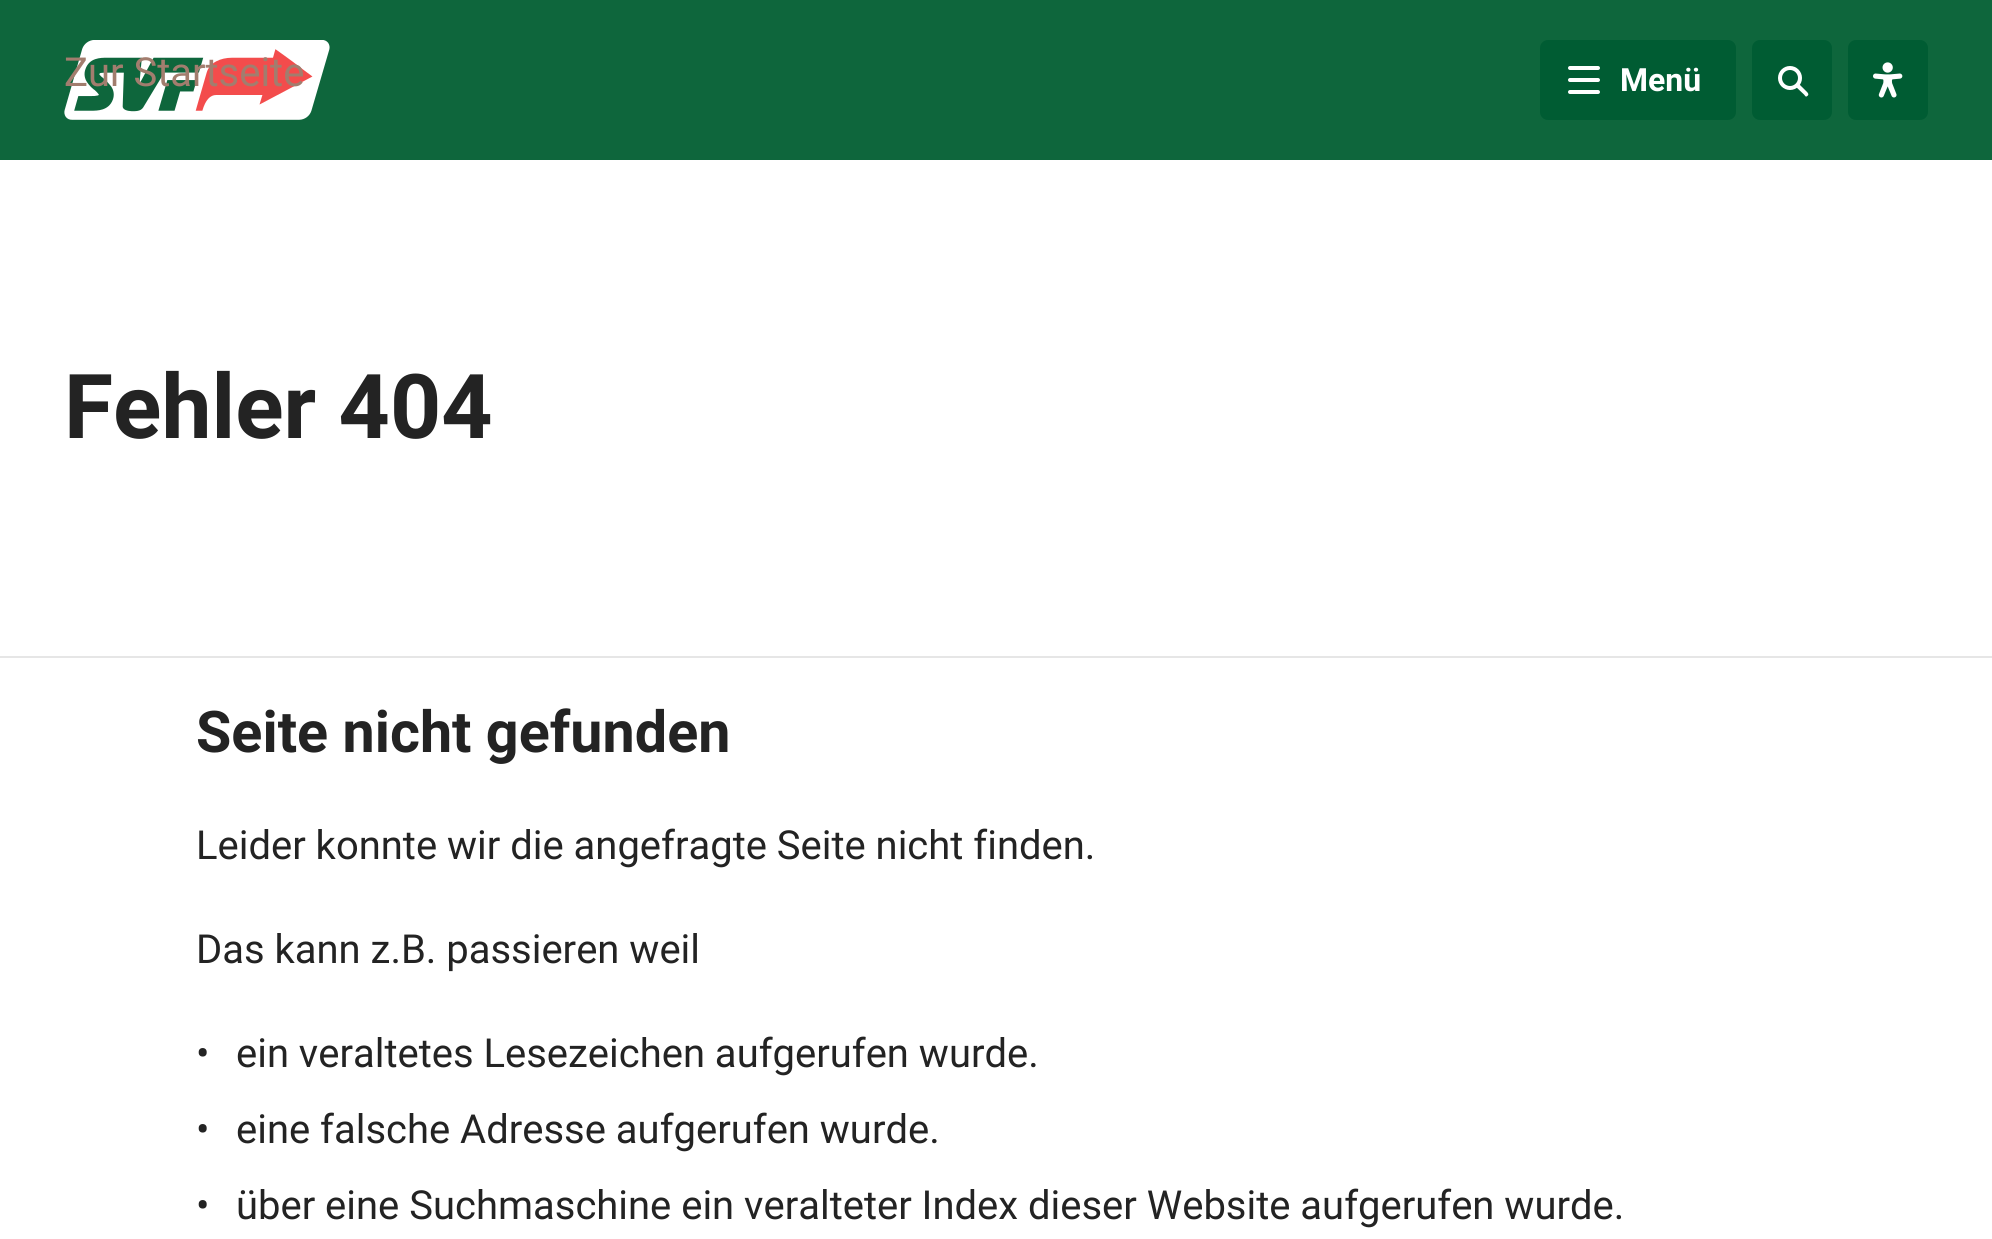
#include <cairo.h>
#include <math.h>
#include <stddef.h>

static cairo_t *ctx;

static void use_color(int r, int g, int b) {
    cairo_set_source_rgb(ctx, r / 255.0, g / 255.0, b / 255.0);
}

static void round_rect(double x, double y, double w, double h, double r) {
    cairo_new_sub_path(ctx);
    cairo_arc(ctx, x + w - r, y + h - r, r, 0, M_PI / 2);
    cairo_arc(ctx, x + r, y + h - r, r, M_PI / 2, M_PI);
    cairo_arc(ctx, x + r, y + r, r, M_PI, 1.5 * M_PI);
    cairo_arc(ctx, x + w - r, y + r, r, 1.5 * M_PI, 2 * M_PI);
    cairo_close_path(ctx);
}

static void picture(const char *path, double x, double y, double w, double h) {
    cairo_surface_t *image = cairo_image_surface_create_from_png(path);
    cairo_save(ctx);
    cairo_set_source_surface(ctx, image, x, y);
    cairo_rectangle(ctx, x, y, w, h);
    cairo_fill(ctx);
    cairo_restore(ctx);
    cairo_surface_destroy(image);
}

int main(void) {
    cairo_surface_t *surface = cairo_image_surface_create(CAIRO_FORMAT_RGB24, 1992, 1239);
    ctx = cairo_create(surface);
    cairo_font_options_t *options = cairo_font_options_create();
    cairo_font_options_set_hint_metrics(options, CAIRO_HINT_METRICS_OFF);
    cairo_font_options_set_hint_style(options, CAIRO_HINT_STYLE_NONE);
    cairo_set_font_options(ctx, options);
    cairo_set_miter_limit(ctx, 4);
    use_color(255, 255, 255);
    cairo_paint(ctx);
    use_color(14, 102, 60);
    cairo_rectangle(ctx, 0, 0, 1992, 160);
    cairo_fill(ctx);
    picture("img1.png", 64, 40, 266, 80);
    cairo_select_font_face(ctx, "Roboto", CAIRO_FONT_SLANT_NORMAL, CAIRO_FONT_WEIGHT_NORMAL);
    cairo_set_font_size(ctx, 40);
    use_color(162, 125, 110);
    cairo_move_to(ctx, 64, 86);
    cairo_show_text(ctx, "Zur Startseite");
    use_color(0, 92, 51);
    round_rect(1540, 40, 196, 80, 8);
    cairo_fill(ctx);
    use_color(255, 255, 255);
    round_rect(1568, 66, 32, 4, 2);
    cairo_fill(ctx);
    round_rect(1568, 78, 32, 4, 2);
    cairo_fill(ctx);
    round_rect(1568, 90, 32, 4, 2);
    cairo_fill(ctx);
    cairo_select_font_face(ctx, "Roboto", CAIRO_FONT_SLANT_NORMAL, CAIRO_FONT_WEIGHT_BOLD);
    cairo_set_font_size(ctx, 32);
    cairo_move_to(ctx, 1620, 91);
    cairo_show_text(ctx, "Menü");
    use_color(0, 92, 51);
    round_rect(1752, 40, 80, 80, 8);
    cairo_fill(ctx);
    use_color(255, 255, 255);
    cairo_new_path(ctx);
    cairo_move_to(ctx, 1798.5, 83.5);
    cairo_line_to(ctx, 1805, 90);
    cairo_curve_to(ctx, 1807, 92, 1810.5, 94.5, 1806.5, 96.5);
    cairo_curve_to(ctx, 1805.5, 97, 1805, 95.5, 1804, 94.5);
    cairo_line_to(ctx, 1795.5, 86.5);
    cairo_curve_to(ctx, 1795, 85, 1797.5, 83, 1798.5, 83.5);
    cairo_close_path(ctx);
    cairo_fill(ctx);
    cairo_arc(ctx, 1790, 78, 10, 0, 2 * M_PI);
    cairo_set_line_width(ctx, 4);
    cairo_stroke(ctx);
    use_color(0, 92, 51);
    round_rect(1848, 40, 80, 80, 8);
    cairo_fill(ctx);
    picture("img2.png", 1873, 62, 30, 36);
    use_color(230, 230, 230);
    cairo_rectangle(ctx, 0, 656, 1992, 2);
    cairo_fill(ctx);
    cairo_set_font_size(ctx, 89.5);
    use_color(35, 35, 35);
    cairo_move_to(ctx, 64, 438);
    cairo_show_text(ctx, "Fehler 404");
    cairo_set_font_size(ctx, 57.5);
    cairo_move_to(ctx, 196, 752);
    cairo_show_text(ctx, "Seite nicht gefunden");
    cairo_select_font_face(ctx, "Roboto", CAIRO_FONT_SLANT_NORMAL, CAIRO_FONT_WEIGHT_NORMAL);
    cairo_set_font_size(ctx, 40);
    cairo_move_to(ctx, 196, 859);
    cairo_show_text(ctx, "Leider konnte wir die angefragte Seite nicht finden.");
    cairo_move_to(ctx, 196, 963);
    cairo_show_text(ctx, "Das kann z.B. passieren weil");
    cairo_move_to(ctx, 196, 1067);
    cairo_show_text(ctx, "•");
    cairo_move_to(ctx, 236, 1067);
    cairo_show_text(ctx, "ein veraltetes Lesezeichen aufgerufen wurde.");
    cairo_move_to(ctx, 196, 1143);
    cairo_show_text(ctx, "•");
    cairo_move_to(ctx, 236, 1143);
    cairo_show_text(ctx, "eine falsche Adresse aufgerufen wurde.");
    cairo_move_to(ctx, 196, 1219);
    cairo_show_text(ctx, "•");
    cairo_move_to(ctx, 236, 1219);
    cairo_show_text(ctx, "über eine Suchmaschine ein veralteter Index dieser Website aufgerufen wurde.");
    cairo_surface_write_to_png(surface, "result.png");
    cairo_font_options_destroy(options);
    cairo_destroy(ctx);
    cairo_surface_destroy(surface);
    return 0;
}
